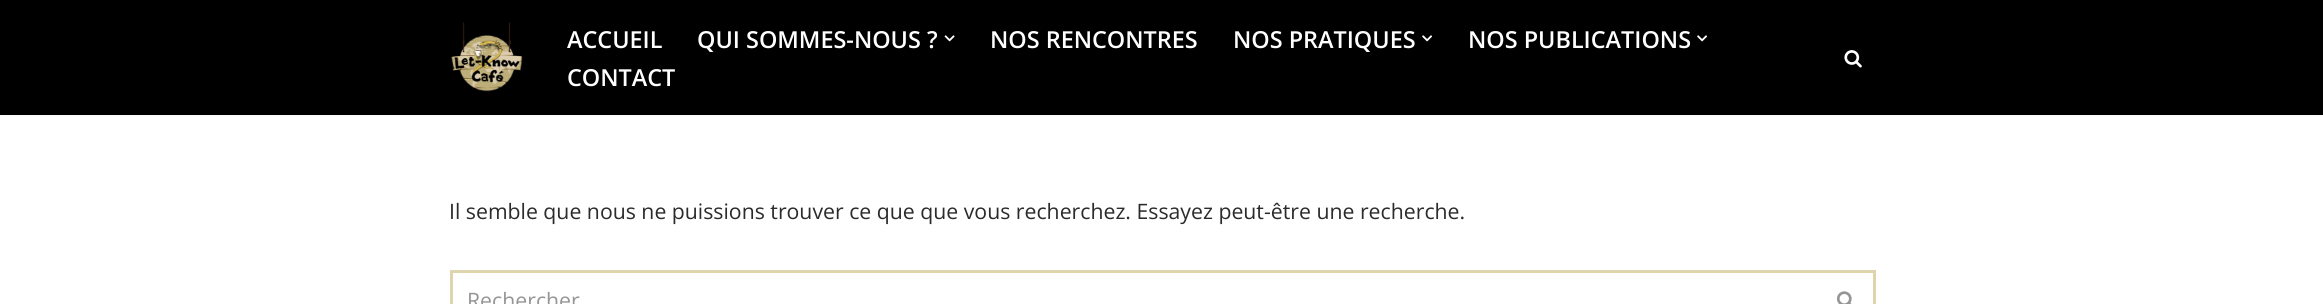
#include <cairo.h>
#include <math.h>
#include <stddef.h>

static cairo_t *ctx;

static void use_color(int r, int g, int b) {
    cairo_set_source_rgb(ctx, r / 255.0, g / 255.0, b / 255.0);
}

static void round_rect(double x, double y, double w, double h, double r) {
    cairo_new_sub_path(ctx);
    cairo_arc(ctx, x + w - r, y + h - r, r, 0, M_PI / 2);
    cairo_arc(ctx, x + r, y + h - r, r, M_PI / 2, M_PI);
    cairo_arc(ctx, x + r, y + r, r, M_PI, 1.5 * M_PI);
    cairo_arc(ctx, x + w - r, y + r, r, 1.5 * M_PI, 2 * M_PI);
    cairo_close_path(ctx);
}

static void shadow(double x, double y, double w, double h, double r, double blur, double alpha) {
    cairo_push_group_with_content(ctx, CAIRO_CONTENT_ALPHA);
    cairo_set_operator(ctx, CAIRO_OPERATOR_SOURCE);
    for (int i = 15; i >= -15 && fmin(w, h) + blur * i / 3 > 0; i -= 2) {
        double e = blur * i / 6;
        cairo_set_source_rgba(ctx, 0, 0, 0, alpha * erfc((i - 1) / 8.5) / 2);
        round_rect(x - e, y - e, w + 2 * e, h + 2 * e, fmax(0, fmin(r + e + blur * .6, fmin(w, h) / 2 + e)));
        cairo_fill(ctx);
    }
    cairo_pattern_t *soft = cairo_pop_group(ctx);
    cairo_mask(ctx, soft);
    cairo_pattern_destroy(soft);
}

static void picture(const char *path, double x, double y, double w, double h) {
    cairo_surface_t *image = cairo_image_surface_create_from_png(path);
    cairo_save(ctx);
    cairo_set_source_surface(ctx, image, x, y);
    cairo_rectangle(ctx, x, y, w, h);
    cairo_fill(ctx);
    cairo_restore(ctx);
    cairo_surface_destroy(image);
}

int main(void) {
    cairo_surface_t *surface = cairo_image_surface_create(CAIRO_FORMAT_RGB24, 2323, 304);
    ctx = cairo_create(surface);
    cairo_font_options_t *options = cairo_font_options_create();
    cairo_font_options_set_hint_metrics(options, CAIRO_HINT_METRICS_OFF);
    cairo_font_options_set_hint_style(options, CAIRO_HINT_STYLE_NONE);
    cairo_set_font_options(ctx, options);
    cairo_set_miter_limit(ctx, 4);
    use_color(255, 255, 255);
    cairo_paint(ctx);
    use_color(0, 0, 0);
    shadow(0, -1, 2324, 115, 0, 2, 0.1);
    use_color(0, 0, 0);
    cairo_rectangle(ctx, 0, 0, 2323, 115);
    cairo_fill(ctx);
    picture("img1.png", 451, 22, 72, 70);
    cairo_select_font_face(ctx, "Open Sans SemiBold", CAIRO_FONT_SLANT_NORMAL, CAIRO_FONT_WEIGHT_NORMAL);
    cairo_set_font_size(ctx, 23.4);
    use_color(255, 255, 255);
    cairo_move_to(ctx, 567, 48);
    cairo_show_text(ctx, "ACCUEIL");
    cairo_move_to(ctx, 697, 48);
    cairo_show_text(ctx, "QUI SOMMES-NOUS ?");
    picture("img2.png", 944, 35, 11, 7);
    cairo_move_to(ctx, 990, 48);
    cairo_show_text(ctx, "NOS RENCONTRES");
    cairo_move_to(ctx, 1233, 48);
    cairo_show_text(ctx, "NOS PRATIQUES");
    picture("img3.png", 1422, 35, 10, 7);
    cairo_move_to(ctx, 1468, 48);
    cairo_show_text(ctx, "NOS PUBLICATIONS");
    picture("img3.png", 1697, 35, 10, 7);
    cairo_move_to(ctx, 567, 86);
    cairo_show_text(ctx, "CONTACT");
    picture("img4.png", 1844, 50, 18, 18);
    cairo_select_font_face(ctx, "Open Sans", CAIRO_FONT_SLANT_NORMAL, CAIRO_FONT_WEIGHT_NORMAL);
    cairo_set_font_size(ctx, 21.25);
    use_color(43, 43, 43);
    cairo_move_to(ctx, 449, 219);
    cairo_show_text(ctx, "Il semble que nous ne puissions trouver ce que que vous recherchez. Essayez peut-être une recherche.");
    use_color(222, 213, 172);
    cairo_rectangle(ctx, 450, 270, 1425, 3);
    cairo_fill(ctx);
    cairo_rectangle(ctx, 450, 270, 3, 34);
    cairo_fill(ctx);
    use_color(149, 149, 149);
    cairo_move_to(ctx, 467, 308);
    cairo_show_text(ctx, "Rechercher");
    use_color(222, 213, 172);
    cairo_rectangle(ctx, 1873, 270, 3, 34);
    cairo_fill(ctx);
    picture("img5.png", 1836, 291, 16, 13);
    cairo_surface_write_to_png(surface, "result.png");
    cairo_font_options_destroy(options);
    cairo_destroy(ctx);
    cairo_surface_destroy(surface);
    return 0;
}
